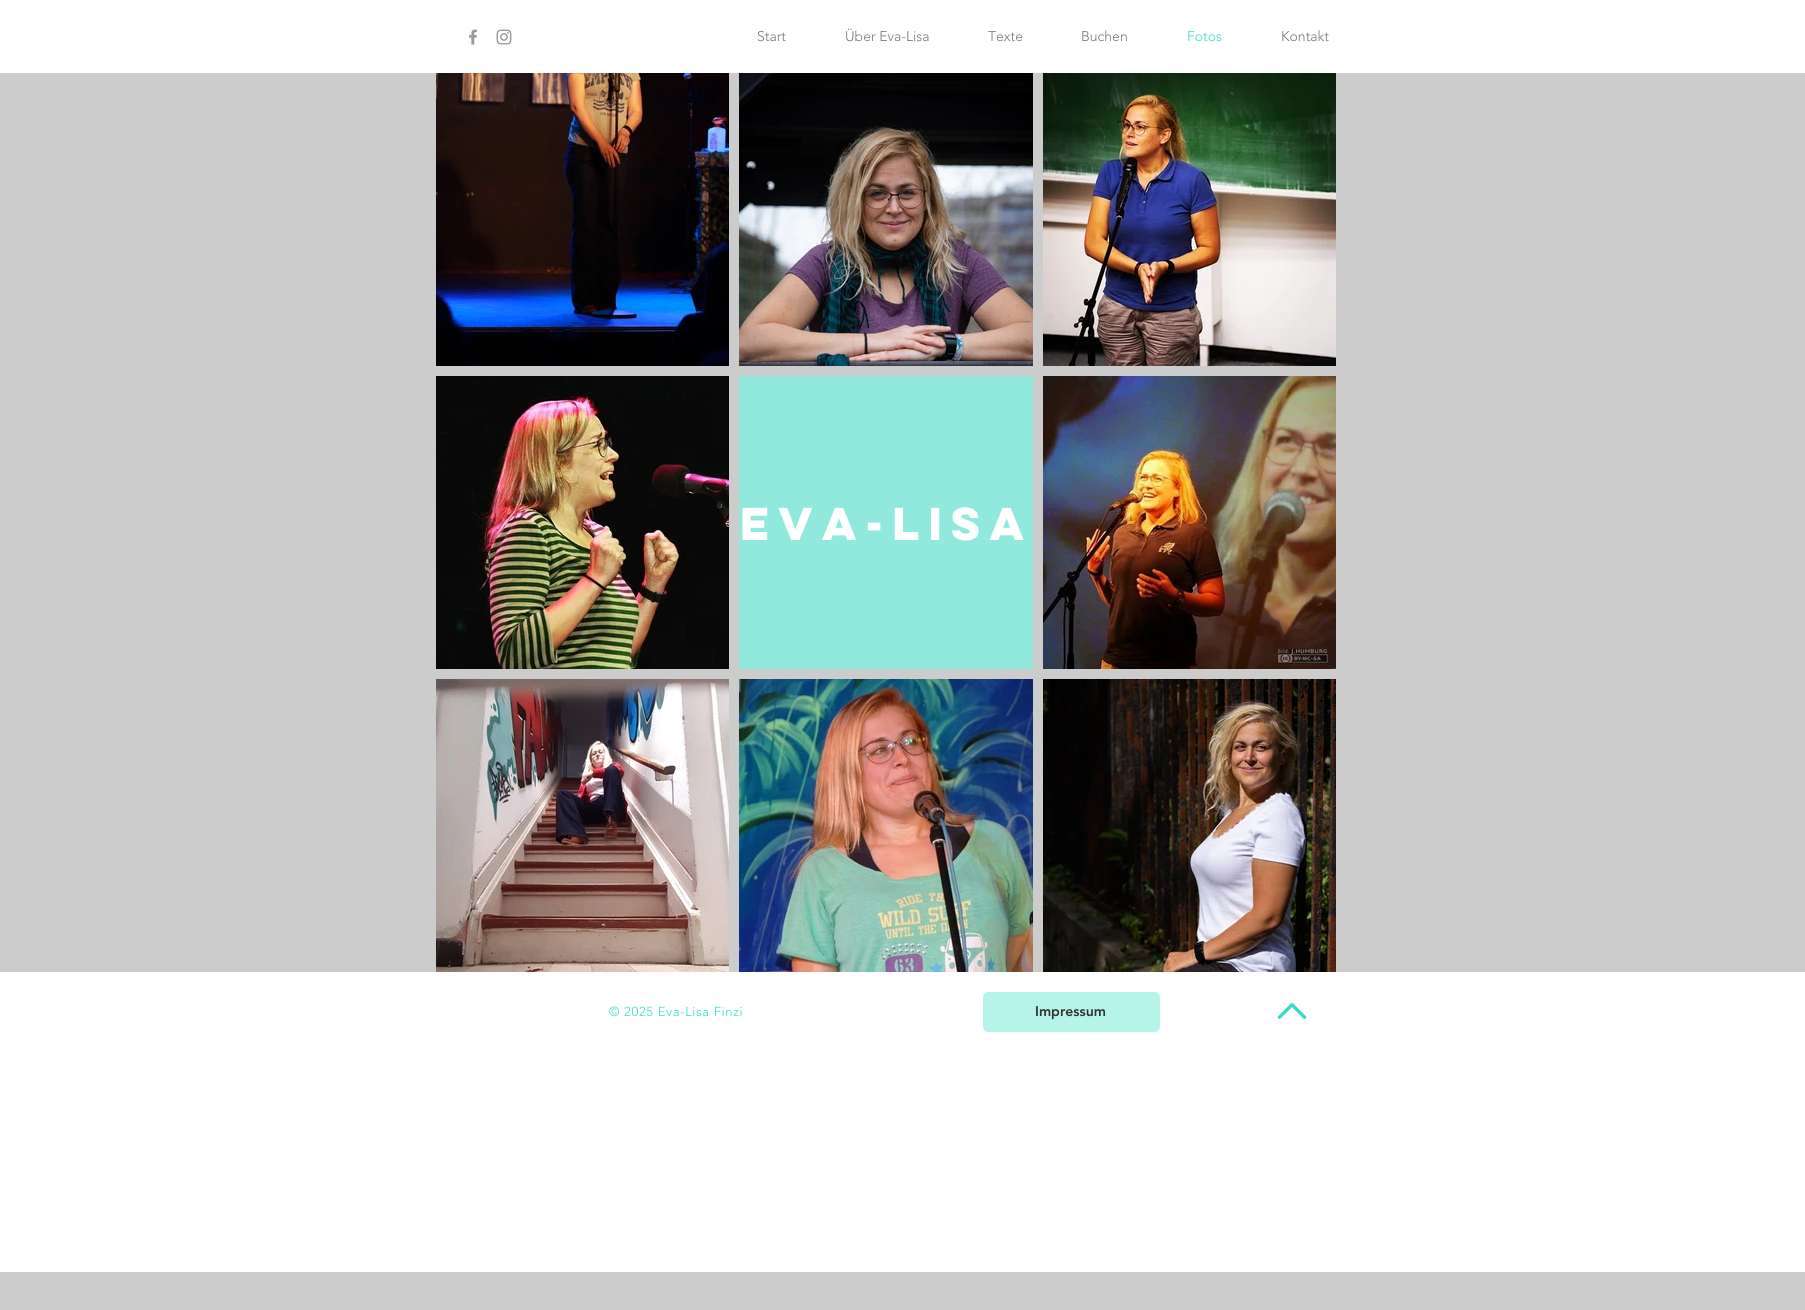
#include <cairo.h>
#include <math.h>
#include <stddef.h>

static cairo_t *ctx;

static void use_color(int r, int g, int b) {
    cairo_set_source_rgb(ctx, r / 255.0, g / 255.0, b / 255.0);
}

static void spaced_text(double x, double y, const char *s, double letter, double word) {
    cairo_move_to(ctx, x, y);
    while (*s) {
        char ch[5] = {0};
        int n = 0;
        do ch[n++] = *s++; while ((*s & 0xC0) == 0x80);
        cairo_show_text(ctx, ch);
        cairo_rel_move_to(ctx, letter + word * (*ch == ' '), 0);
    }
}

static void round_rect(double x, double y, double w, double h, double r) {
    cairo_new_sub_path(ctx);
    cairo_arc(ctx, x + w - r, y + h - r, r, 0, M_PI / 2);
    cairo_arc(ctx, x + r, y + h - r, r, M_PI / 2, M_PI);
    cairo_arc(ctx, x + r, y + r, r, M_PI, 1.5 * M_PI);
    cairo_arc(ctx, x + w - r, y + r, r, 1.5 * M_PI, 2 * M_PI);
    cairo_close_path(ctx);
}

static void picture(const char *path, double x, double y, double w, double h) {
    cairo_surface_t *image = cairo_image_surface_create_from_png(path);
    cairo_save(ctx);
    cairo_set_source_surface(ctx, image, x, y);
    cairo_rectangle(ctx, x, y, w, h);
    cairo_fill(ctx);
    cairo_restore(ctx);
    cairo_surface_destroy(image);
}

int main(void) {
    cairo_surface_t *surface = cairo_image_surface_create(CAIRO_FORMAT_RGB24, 1805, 1310);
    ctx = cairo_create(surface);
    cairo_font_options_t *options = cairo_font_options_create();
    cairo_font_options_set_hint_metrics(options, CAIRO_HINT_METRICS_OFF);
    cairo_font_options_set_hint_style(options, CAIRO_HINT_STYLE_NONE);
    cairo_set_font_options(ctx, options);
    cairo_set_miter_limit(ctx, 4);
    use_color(204, 204, 204);
    cairo_paint(ctx);
    use_color(255, 255, 255);
    cairo_rectangle(ctx, 0, 0, 1805, 73);
    cairo_fill(ctx);
    picture("img1.png", 469, 29, 8, 16);
    picture("img2.png", 496, 29, 16, 16);
    cairo_select_font_face(ctx, "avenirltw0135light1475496 Light", CAIRO_FONT_SLANT_NORMAL, CAIRO_FONT_WEIGHT_NORMAL);
    cairo_set_font_size(ctx, 14);
    use_color(120, 120, 119);
    cairo_move_to(ctx, 757, 41);
    cairo_show_text(ctx, "Start");
    cairo_move_to(ctx, 845, 41);
    cairo_show_text(ctx, "Über Eva-Lisa");
    cairo_move_to(ctx, 988, 41);
    cairo_show_text(ctx, "Texte");
    cairo_move_to(ctx, 1081, 41);
    cairo_show_text(ctx, "Buchen");
    use_color(56, 220, 200);
    cairo_move_to(ctx, 1187, 41);
    cairo_show_text(ctx, "Fotos");
    use_color(120, 120, 119);
    cairo_move_to(ctx, 1281, 41);
    cairo_show_text(ctx, "Kontakt");
    picture("img3.png", 436, 73, 293, 293);
    picture("img4.png", 739, 73, 294, 293);
    picture("img5.png", 1043, 73, 293, 293);
    picture("img6.png", 436, 376, 293, 293);
    use_color(145, 232, 221);
    cairo_rectangle(ctx, 739, 376, 294, 293);
    cairo_fill(ctx);
    cairo_select_font_face(ctx, "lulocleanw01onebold", CAIRO_FONT_SLANT_NORMAL, CAIRO_FONT_WEIGHT_BOLD);
    cairo_set_font_size(ctx, 41.25);
    use_color(255, 255, 255);
    cairo_move_to(ctx, 740, 540);
    cairo_show_text(ctx, "Eva-Lisa");
    picture("img7.png", 1043, 376, 293, 293);
    picture("img8.png", 436, 679, 293, 293);
    picture("img9.png", 739, 679, 294, 293);
    picture("img10.png", 1043, 679, 293, 293);
    cairo_rectangle(ctx, 0, 972, 1805, 300);
    cairo_fill(ctx);
    cairo_select_font_face(ctx, "avenirltw0135light1475496 Light", CAIRO_FONT_SLANT_NORMAL, CAIRO_FONT_WEIGHT_NORMAL);
    cairo_set_font_size(ctx, 13);
    use_color(56, 220, 200);
    spaced_text(609, 1016, "© 2025 Eva-Lisa Finzi", 0.65, 0);
    use_color(182, 243, 232);
    round_rect(983, 992, 177, 40, 5);
    cairo_fill(ctx);
    cairo_select_font_face(ctx, "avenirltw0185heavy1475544 Black", CAIRO_FONT_SLANT_NORMAL, CAIRO_FONT_WEIGHT_NORMAL);
    cairo_set_font_size(ctx, 14);
    use_color(50, 50, 50);
    cairo_move_to(ctx, 1035, 1016);
    cairo_show_text(ctx, "Impressum");
    picture("img11.png", 1277, 1003, 30, 16);
    cairo_surface_write_to_png(surface, "result.png");
    cairo_font_options_destroy(options);
    cairo_destroy(ctx);
    cairo_surface_destroy(surface);
    return 0;
}
